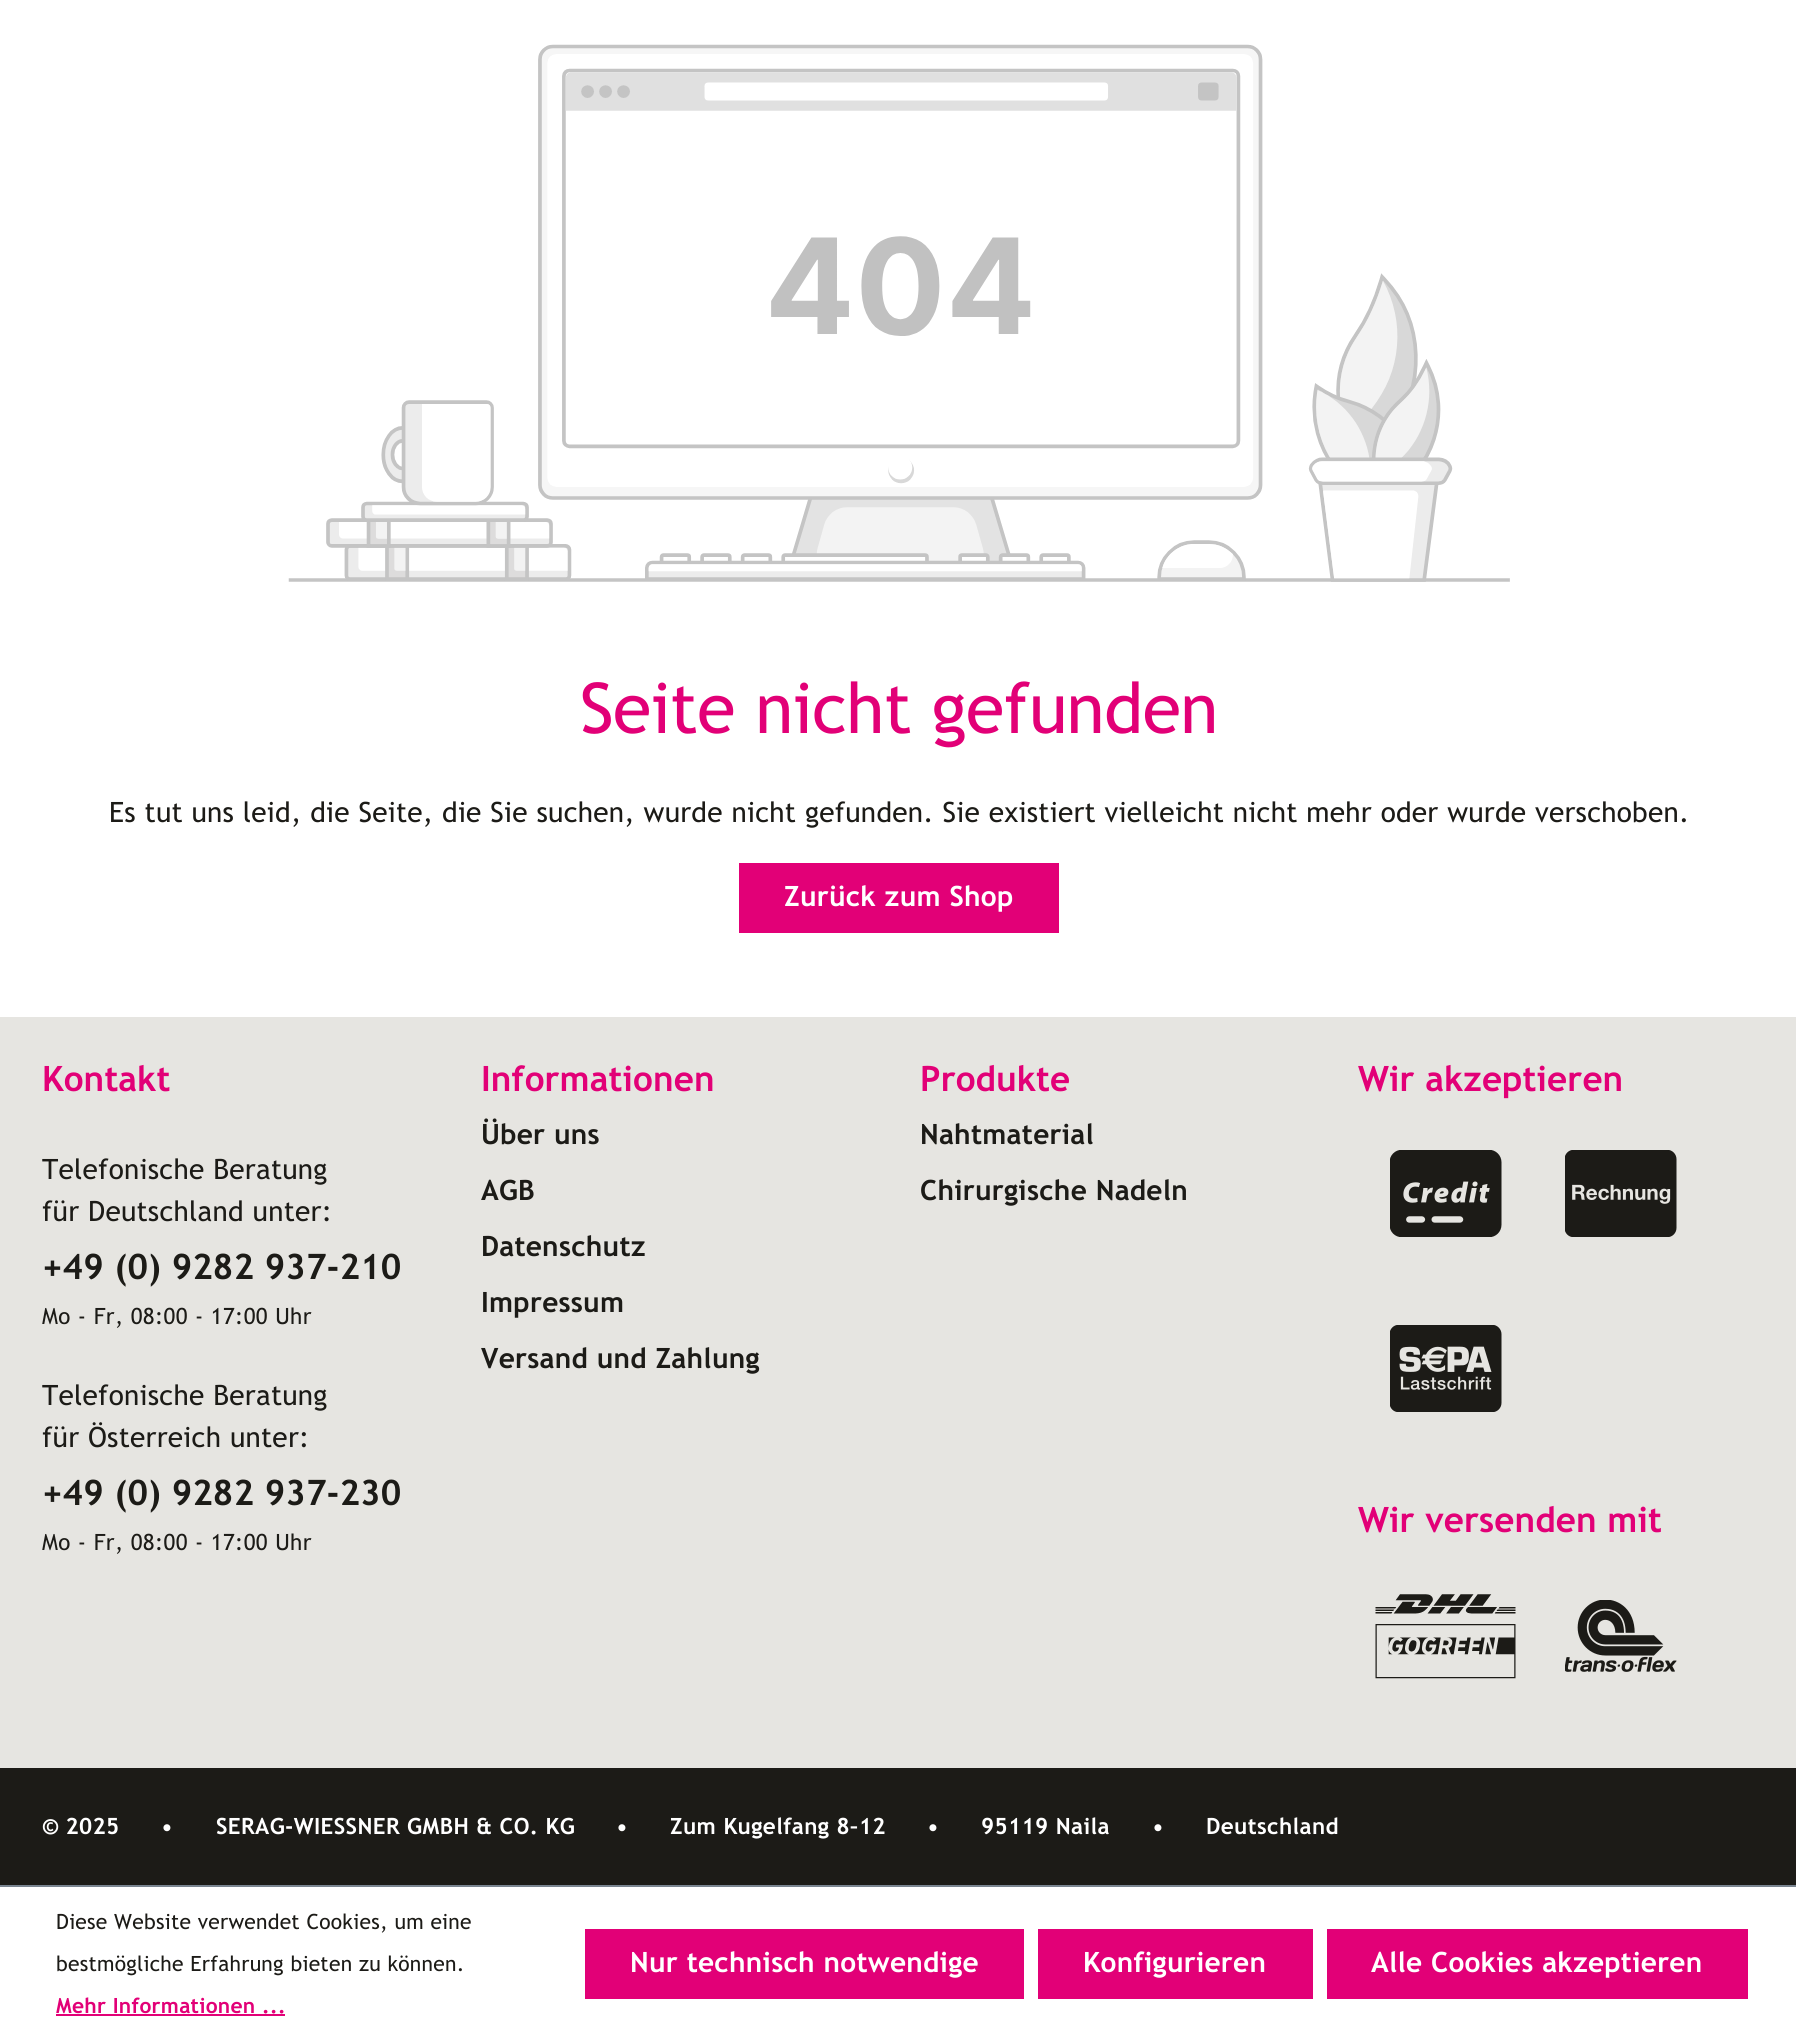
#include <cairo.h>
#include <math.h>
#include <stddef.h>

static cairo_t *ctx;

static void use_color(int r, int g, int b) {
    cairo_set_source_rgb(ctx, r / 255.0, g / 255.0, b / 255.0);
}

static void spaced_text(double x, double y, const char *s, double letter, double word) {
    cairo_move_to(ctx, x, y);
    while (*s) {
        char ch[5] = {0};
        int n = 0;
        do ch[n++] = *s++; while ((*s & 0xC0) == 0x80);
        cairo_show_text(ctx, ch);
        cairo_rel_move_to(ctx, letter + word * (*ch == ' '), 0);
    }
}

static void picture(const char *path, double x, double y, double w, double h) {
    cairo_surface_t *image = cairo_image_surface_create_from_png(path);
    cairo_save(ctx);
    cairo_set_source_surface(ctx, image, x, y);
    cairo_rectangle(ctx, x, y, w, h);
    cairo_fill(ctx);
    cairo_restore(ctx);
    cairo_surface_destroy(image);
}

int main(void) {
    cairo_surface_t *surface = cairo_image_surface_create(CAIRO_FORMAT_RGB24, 1796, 2039);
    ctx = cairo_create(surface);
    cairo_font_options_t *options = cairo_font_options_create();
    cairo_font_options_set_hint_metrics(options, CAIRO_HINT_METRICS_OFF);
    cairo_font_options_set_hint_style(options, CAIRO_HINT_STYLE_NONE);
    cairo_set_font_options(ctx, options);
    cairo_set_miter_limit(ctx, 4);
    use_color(255, 255, 255);
    cairo_paint(ctx);
    picture("img1.png", 288, 44, 1222, 538);
    cairo_select_font_face(ctx, "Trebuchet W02", CAIRO_FONT_SLANT_NORMAL, CAIRO_FONT_WEIGHT_NORMAL);
    cairo_set_font_size(ctx, 70);
    use_color(226, 0, 119);
    spaced_text(580, 733, "Seite nicht gefunden", -0.6, 0);
    cairo_set_font_size(ctx, 28);
    use_color(28, 27, 23);
    spaced_text(109, 822, "Es tut uns leid, die Seite, die Sie suchen, wurde nicht gefunden. Sie existiert vielleicht nicht mehr oder wurde verschoben.", 0.25, 0);
    use_color(226, 0, 119);
    cairo_rectangle(ctx, 739, 863, 320, 70);
    cairo_fill(ctx);
    cairo_select_font_face(ctx, "Trebuchet W02", CAIRO_FONT_SLANT_NORMAL, CAIRO_FONT_WEIGHT_BOLD);
    use_color(255, 255, 255);
    spaced_text(784, 906, "Zurück zum Shop", 0.25, 0);
    use_color(230, 229, 225);
    cairo_rectangle(ctx, 0, 1017, 1796, 751);
    cairo_fill(ctx);
    cairo_set_font_size(ctx, 35);
    use_color(226, 0, 119);
    spaced_text(42, 1091, "Kontakt", 0.1, 0);
    cairo_select_font_face(ctx, "Trebuchet W02", CAIRO_FONT_SLANT_NORMAL, CAIRO_FONT_WEIGHT_NORMAL);
    cairo_set_font_size(ctx, 28);
    use_color(28, 27, 23);
    spaced_text(42, 1179, "Telefonische Beratung", 0.25, 0);
    spaced_text(42, 1221, "für Deutschland unter:", 0.25, 0);
    cairo_select_font_face(ctx, "Trebuchet W02", CAIRO_FONT_SLANT_NORMAL, CAIRO_FONT_WEIGHT_BOLD);
    cairo_set_font_size(ctx, 35);
    spaced_text(42, 1279, "+49 (0) 9282 937-210", 0.1, 0);
    cairo_select_font_face(ctx, "Trebuchet W02", CAIRO_FONT_SLANT_NORMAL, CAIRO_FONT_WEIGHT_NORMAL);
    cairo_set_font_size(ctx, 22.4);
    spaced_text(42, 1324, "Mo - Fr, 08:00 - 17:00 Uhr", 0.4, 0);
    cairo_set_font_size(ctx, 28);
    spaced_text(42, 1405, "Telefonische Beratung", 0.25, 0);
    spaced_text(42, 1447, "für Österreich unter:", 0.25, 0);
    cairo_select_font_face(ctx, "Trebuchet W02", CAIRO_FONT_SLANT_NORMAL, CAIRO_FONT_WEIGHT_BOLD);
    cairo_set_font_size(ctx, 35);
    spaced_text(42, 1505, "+49 (0) 9282 937-230", 0.1, 0);
    cairo_select_font_face(ctx, "Trebuchet W02", CAIRO_FONT_SLANT_NORMAL, CAIRO_FONT_WEIGHT_NORMAL);
    cairo_set_font_size(ctx, 22.4);
    spaced_text(42, 1550, "Mo - Fr, 08:00 - 17:00 Uhr", 0.4, 0);
    cairo_select_font_face(ctx, "Trebuchet W02", CAIRO_FONT_SLANT_NORMAL, CAIRO_FONT_WEIGHT_BOLD);
    cairo_set_font_size(ctx, 35);
    use_color(226, 0, 119);
    spaced_text(481, 1091, "Informationen", 0.1, 0);
    cairo_set_font_size(ctx, 28);
    use_color(28, 27, 23);
    spaced_text(481, 1144, "Über uns", 0.25, 0);
    spaced_text(481, 1200, "AGB", 0.25, 0);
    spaced_text(481, 1256, "Datenschutz", 0.25, 0);
    spaced_text(481, 1312, "Impressum", 0.25, 0);
    spaced_text(481, 1368, "Versand und Zahlung", 0.25, 0);
    cairo_set_font_size(ctx, 35);
    use_color(226, 0, 119);
    spaced_text(920, 1091, "Produkte", 0.1, 0);
    cairo_set_font_size(ctx, 28);
    use_color(28, 27, 23);
    spaced_text(920, 1144, "Nahtmaterial", 0.25, 0);
    spaced_text(920, 1200, "Chirurgische Nadeln", 0.25, 0);
    cairo_set_font_size(ctx, 35);
    use_color(226, 0, 119);
    spaced_text(1358, 1091, "Wir akzeptieren", 0.1, 0);
    picture("img2.png", 1390, 1150, 112, 87);
    picture("img3.png", 1565, 1150, 112, 87);
    picture("img4.png", 1390, 1325, 112, 87);
    spaced_text(1358, 1532, "Wir versenden mit", 0.1, 0);
    picture("img5.png", 1375, 1594, 141, 85);
    picture("img6.png", 1565, 1600, 112, 72);
    use_color(28, 27, 23);
    cairo_rectangle(ctx, 0, 1768, 1796, 117);
    cairo_fill(ctx);
    cairo_set_font_size(ctx, 22.4);
    use_color(255, 255, 255);
    spaced_text(42, 1834, "© 2025", 0.4, 0);
    spaced_text(161, 1834, "•", 0.4, 0);
    spaced_text(216, 1834, "SERAG-WIESSNER GMBH & CO. KG", 0.4, 0);
    spaced_text(616, 1834, "•", 0.4, 0);
    spaced_text(670, 1834, "Zum Kugelfang 8–12", 0.4, 0);
    spaced_text(927, 1834, "•", 0.4, 0);
    spaced_text(981, 1834, "95119 Naila", 0.4, 0);
    spaced_text(1152, 1834, "•", 0.4, 0);
    spaced_text(1206, 1834, "Deutschland", 0.4, 0);
    use_color(121, 132, 144);
    cairo_rectangle(ctx, 0, 1885, 1796, 2);
    cairo_fill(ctx);
    cairo_select_font_face(ctx, "Trebuchet W02", CAIRO_FONT_SLANT_NORMAL, CAIRO_FONT_WEIGHT_NORMAL);
    cairo_set_font_size(ctx, 21);
    use_color(28, 27, 23);
    spaced_text(56, 1929, "Diese Website verwendet Cookies, um eine", 0.25, 0);
    spaced_text(56, 1971, "bestmögliche Erfahrung bieten zu können.", 0.25, 0);
    cairo_select_font_face(ctx, "Trebuchet W02", CAIRO_FONT_SLANT_NORMAL, CAIRO_FONT_WEIGHT_BOLD);
    use_color(226, 0, 119);
    spaced_text(56, 2013, "Mehr Informationen ...", 0.25, 0);
    cairo_rectangle(ctx, 56, 2014, 229, 2);
    cairo_fill(ctx);
    cairo_rectangle(ctx, 585, 1929, 439, 70);
    cairo_fill(ctx);
    cairo_set_font_size(ctx, 28);
    use_color(255, 255, 255);
    spaced_text(630, 1972, "Nur technisch notwendige", 0.25, 0);
    use_color(226, 0, 119);
    cairo_rectangle(ctx, 1038, 1929, 275, 70);
    cairo_fill(ctx);
    use_color(255, 255, 255);
    spaced_text(1083, 1972, "Konfigurieren", 0.25, 0);
    use_color(226, 0, 119);
    cairo_rectangle(ctx, 1327, 1929, 421, 70);
    cairo_fill(ctx);
    use_color(255, 255, 255);
    spaced_text(1371, 1972, "Alle Cookies akzeptieren", 0.25, 0);
    cairo_surface_write_to_png(surface, "result.png");
    cairo_font_options_destroy(options);
    cairo_destroy(ctx);
    cairo_surface_destroy(surface);
    return 0;
}
